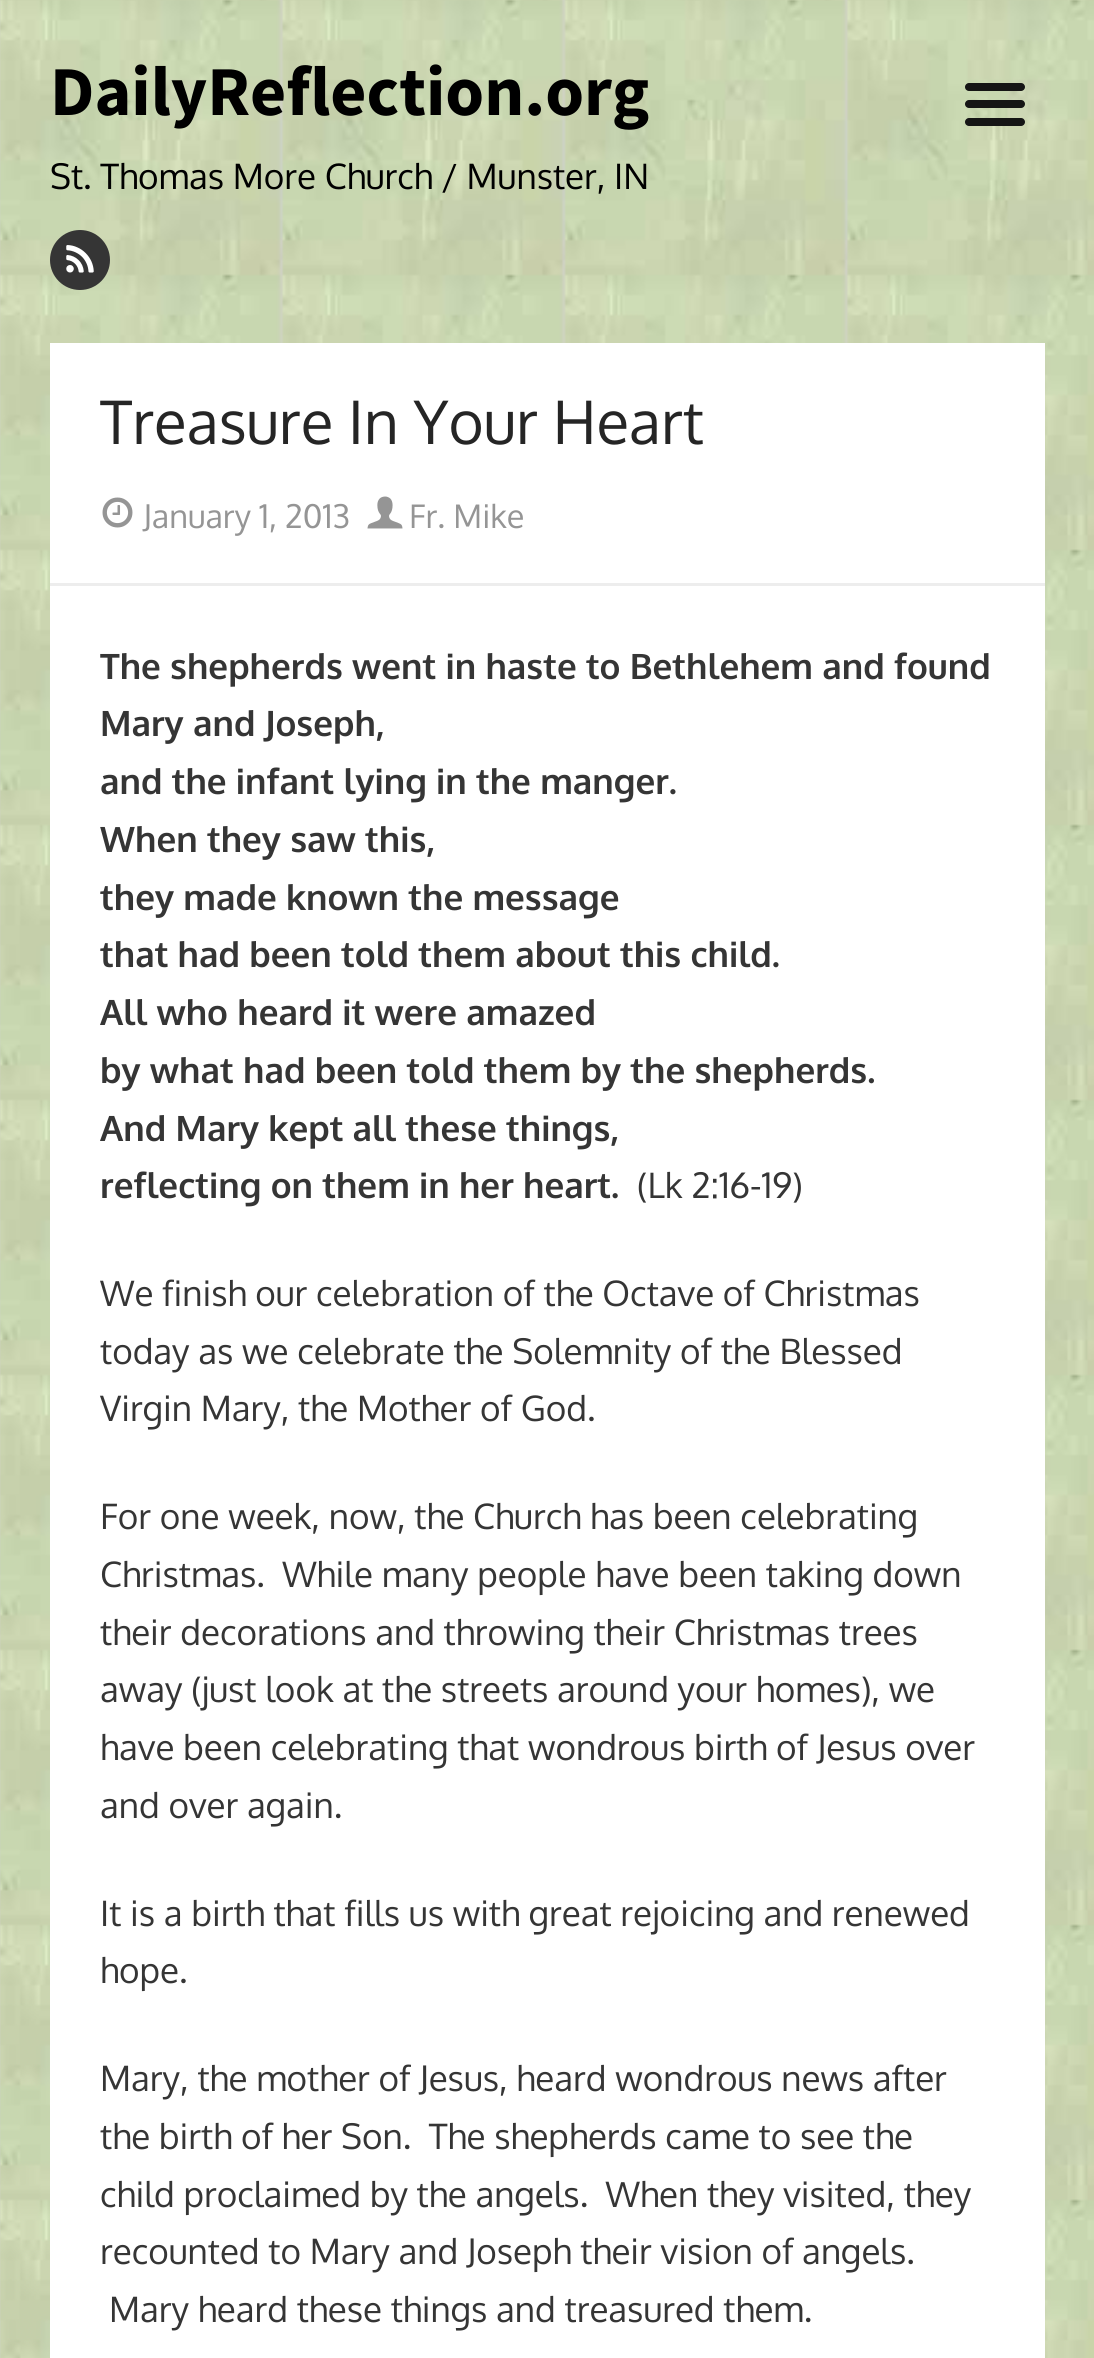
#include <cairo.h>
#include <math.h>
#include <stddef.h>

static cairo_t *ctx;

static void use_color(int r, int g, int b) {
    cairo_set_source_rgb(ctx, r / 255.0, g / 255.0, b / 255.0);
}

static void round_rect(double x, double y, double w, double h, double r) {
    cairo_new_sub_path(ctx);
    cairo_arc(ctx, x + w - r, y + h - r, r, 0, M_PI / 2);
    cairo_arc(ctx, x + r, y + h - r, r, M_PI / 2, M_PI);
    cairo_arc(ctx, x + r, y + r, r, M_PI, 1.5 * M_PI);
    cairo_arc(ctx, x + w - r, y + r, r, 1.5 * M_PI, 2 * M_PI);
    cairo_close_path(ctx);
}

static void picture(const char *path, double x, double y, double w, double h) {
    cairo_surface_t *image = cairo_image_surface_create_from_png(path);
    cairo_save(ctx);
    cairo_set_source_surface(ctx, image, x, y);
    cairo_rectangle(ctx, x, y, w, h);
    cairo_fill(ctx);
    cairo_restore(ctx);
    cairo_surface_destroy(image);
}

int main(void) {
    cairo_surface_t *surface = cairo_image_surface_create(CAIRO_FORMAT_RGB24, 1094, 2358);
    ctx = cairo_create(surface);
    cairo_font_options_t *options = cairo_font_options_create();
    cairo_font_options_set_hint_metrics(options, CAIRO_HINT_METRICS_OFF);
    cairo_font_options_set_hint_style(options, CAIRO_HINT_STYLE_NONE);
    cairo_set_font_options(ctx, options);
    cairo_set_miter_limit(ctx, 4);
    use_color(255, 255, 255);
    cairo_paint(ctx);
    picture("img1.png", 0, 0, 1094, 2358);
    cairo_select_font_face(ctx, "Source Sans Pro", CAIRO_FONT_SLANT_NORMAL, CAIRO_FONT_WEIGHT_BOLD);
    cairo_set_font_size(ctx, 70);
    use_color(0, 0, 0);
    cairo_move_to(ctx, 50, 115);
    cairo_show_text(ctx, "DailyReflection.org");
    cairo_select_font_face(ctx, "Oxygen", CAIRO_FONT_SLANT_NORMAL, CAIRO_FONT_WEIGHT_NORMAL);
    cairo_set_font_size(ctx, 35);
    cairo_move_to(ctx, 50, 189);
    cairo_show_text(ctx, "St. Thomas More Church / Munster, IN");
    use_color(53, 53, 53);
    cairo_new_path(ctx);
    cairo_arc(ctx, 80, 260, 30, 0, 2 * M_PI);
    cairo_fill(ctx);
    picture("img2.png", 66, 245, 28, 28);
    use_color(21, 21, 21);
    round_rect(965, 100, 60, 8, 4);
    cairo_fill(ctx);
    round_rect(965, 83, 60, 8, 4);
    cairo_fill(ctx);
    round_rect(965, 118, 60, 8, 4);
    cairo_fill(ctx);
    use_color(255, 255, 255);
    cairo_rectangle(ctx, 50, 343, 995, 2015);
    cairo_fill(ctx);
    use_color(237, 237, 237);
    cairo_rectangle(ctx, 50, 583, 995, 3);
    cairo_fill(ctx);
    cairo_set_font_size(ctx, 60);
    use_color(37, 37, 37);
    cairo_move_to(ctx, 100, 444);
    cairo_show_text(ctx, "Treasure In Your Heart");
    picture("img3.png", 102, 497, 31, 31);
    cairo_set_font_size(ctx, 32.5);
    use_color(149, 149, 149);
    cairo_move_to(ctx, 143, 528);
    cairo_show_text(ctx, "January 1, 2013");
    picture("img4.png", 367, 496, 36, 33);
    cairo_move_to(ctx, 409, 528);
    cairo_show_text(ctx, "Fr. Mike");
    cairo_select_font_face(ctx, "Oxygen", CAIRO_FONT_SLANT_NORMAL, CAIRO_FONT_WEIGHT_BOLD);
    cairo_set_font_size(ctx, 35);
    use_color(53, 53, 53);
    cairo_move_to(ctx, 100, 679);
    cairo_show_text(ctx, "The shepherds went in haste to Bethlehem and found");
    cairo_move_to(ctx, 100, 736);
    cairo_show_text(ctx, "Mary and Joseph,");
    cairo_move_to(ctx, 100, 794);
    cairo_show_text(ctx, "and the infant lying in the manger.");
    cairo_move_to(ctx, 100, 852);
    cairo_show_text(ctx, "When they saw this,");
    cairo_move_to(ctx, 100, 910);
    cairo_show_text(ctx, "they made known the message");
    cairo_move_to(ctx, 100, 967);
    cairo_show_text(ctx, "that had been told them about this child.");
    cairo_move_to(ctx, 100, 1025);
    cairo_show_text(ctx, "All who heard it were amazed");
    cairo_move_to(ctx, 100, 1083);
    cairo_show_text(ctx, "by what had been told them by the shepherds.");
    cairo_move_to(ctx, 100, 1141);
    cairo_show_text(ctx, "And Mary kept all these things,");
    cairo_move_to(ctx, 100, 1198);
    cairo_show_text(ctx, "reflecting on them in her heart.");
    cairo_select_font_face(ctx, "Oxygen", CAIRO_FONT_SLANT_NORMAL, CAIRO_FONT_WEIGHT_NORMAL);
    cairo_move_to(ctx, 637, 1198);
    cairo_show_text(ctx, "(Lk 2:16-19)");
    cairo_move_to(ctx, 100, 1306);
    cairo_show_text(ctx, "We finish our celebration of the Octave of Christmas");
    cairo_move_to(ctx, 100, 1364);
    cairo_show_text(ctx, "today as we celebrate the Solemnity of the Blessed");
    cairo_move_to(ctx, 100, 1421);
    cairo_show_text(ctx, "Virgin Mary, the Mother of God.");
    cairo_move_to(ctx, 100, 1529);
    cairo_show_text(ctx, "For one week, now, the Church has been celebrating");
    cairo_move_to(ctx, 100, 1587);
    cairo_show_text(ctx, "Christmas.  While many people have been taking down");
    cairo_move_to(ctx, 100, 1645);
    cairo_show_text(ctx, "their decorations and throwing their Christmas trees");
    cairo_move_to(ctx, 100, 1702);
    cairo_show_text(ctx, "away (just look at the streets around your homes), we");
    cairo_move_to(ctx, 100, 1760);
    cairo_show_text(ctx, "have been celebrating that wondrous birth of Jesus over");
    cairo_move_to(ctx, 100, 1818);
    cairo_show_text(ctx, "and over again.");
    cairo_move_to(ctx, 100, 1926);
    cairo_show_text(ctx, "It is a birth that fills us with great rejoicing and renewed");
    cairo_move_to(ctx, 100, 1983);
    cairo_show_text(ctx, "hope.");
    cairo_move_to(ctx, 100, 2091);
    cairo_show_text(ctx, "Mary, the mother of Jesus, heard wondrous news after");
    cairo_move_to(ctx, 100, 2149);
    cairo_show_text(ctx, "the birth of her Son.  The shepherds came to see the");
    cairo_move_to(ctx, 100, 2207);
    cairo_show_text(ctx, "child proclaimed by the angels.  When they visited, they");
    cairo_move_to(ctx, 100, 2264);
    cairo_show_text(ctx, "recounted to Mary and Joseph their vision of angels.");
    cairo_move_to(ctx, 109, 2322);
    cairo_show_text(ctx, "Mary heard these things and treasured them.");
    cairo_surface_write_to_png(surface, "result.png");
    cairo_font_options_destroy(options);
    cairo_destroy(ctx);
    cairo_surface_destroy(surface);
    return 0;
}
